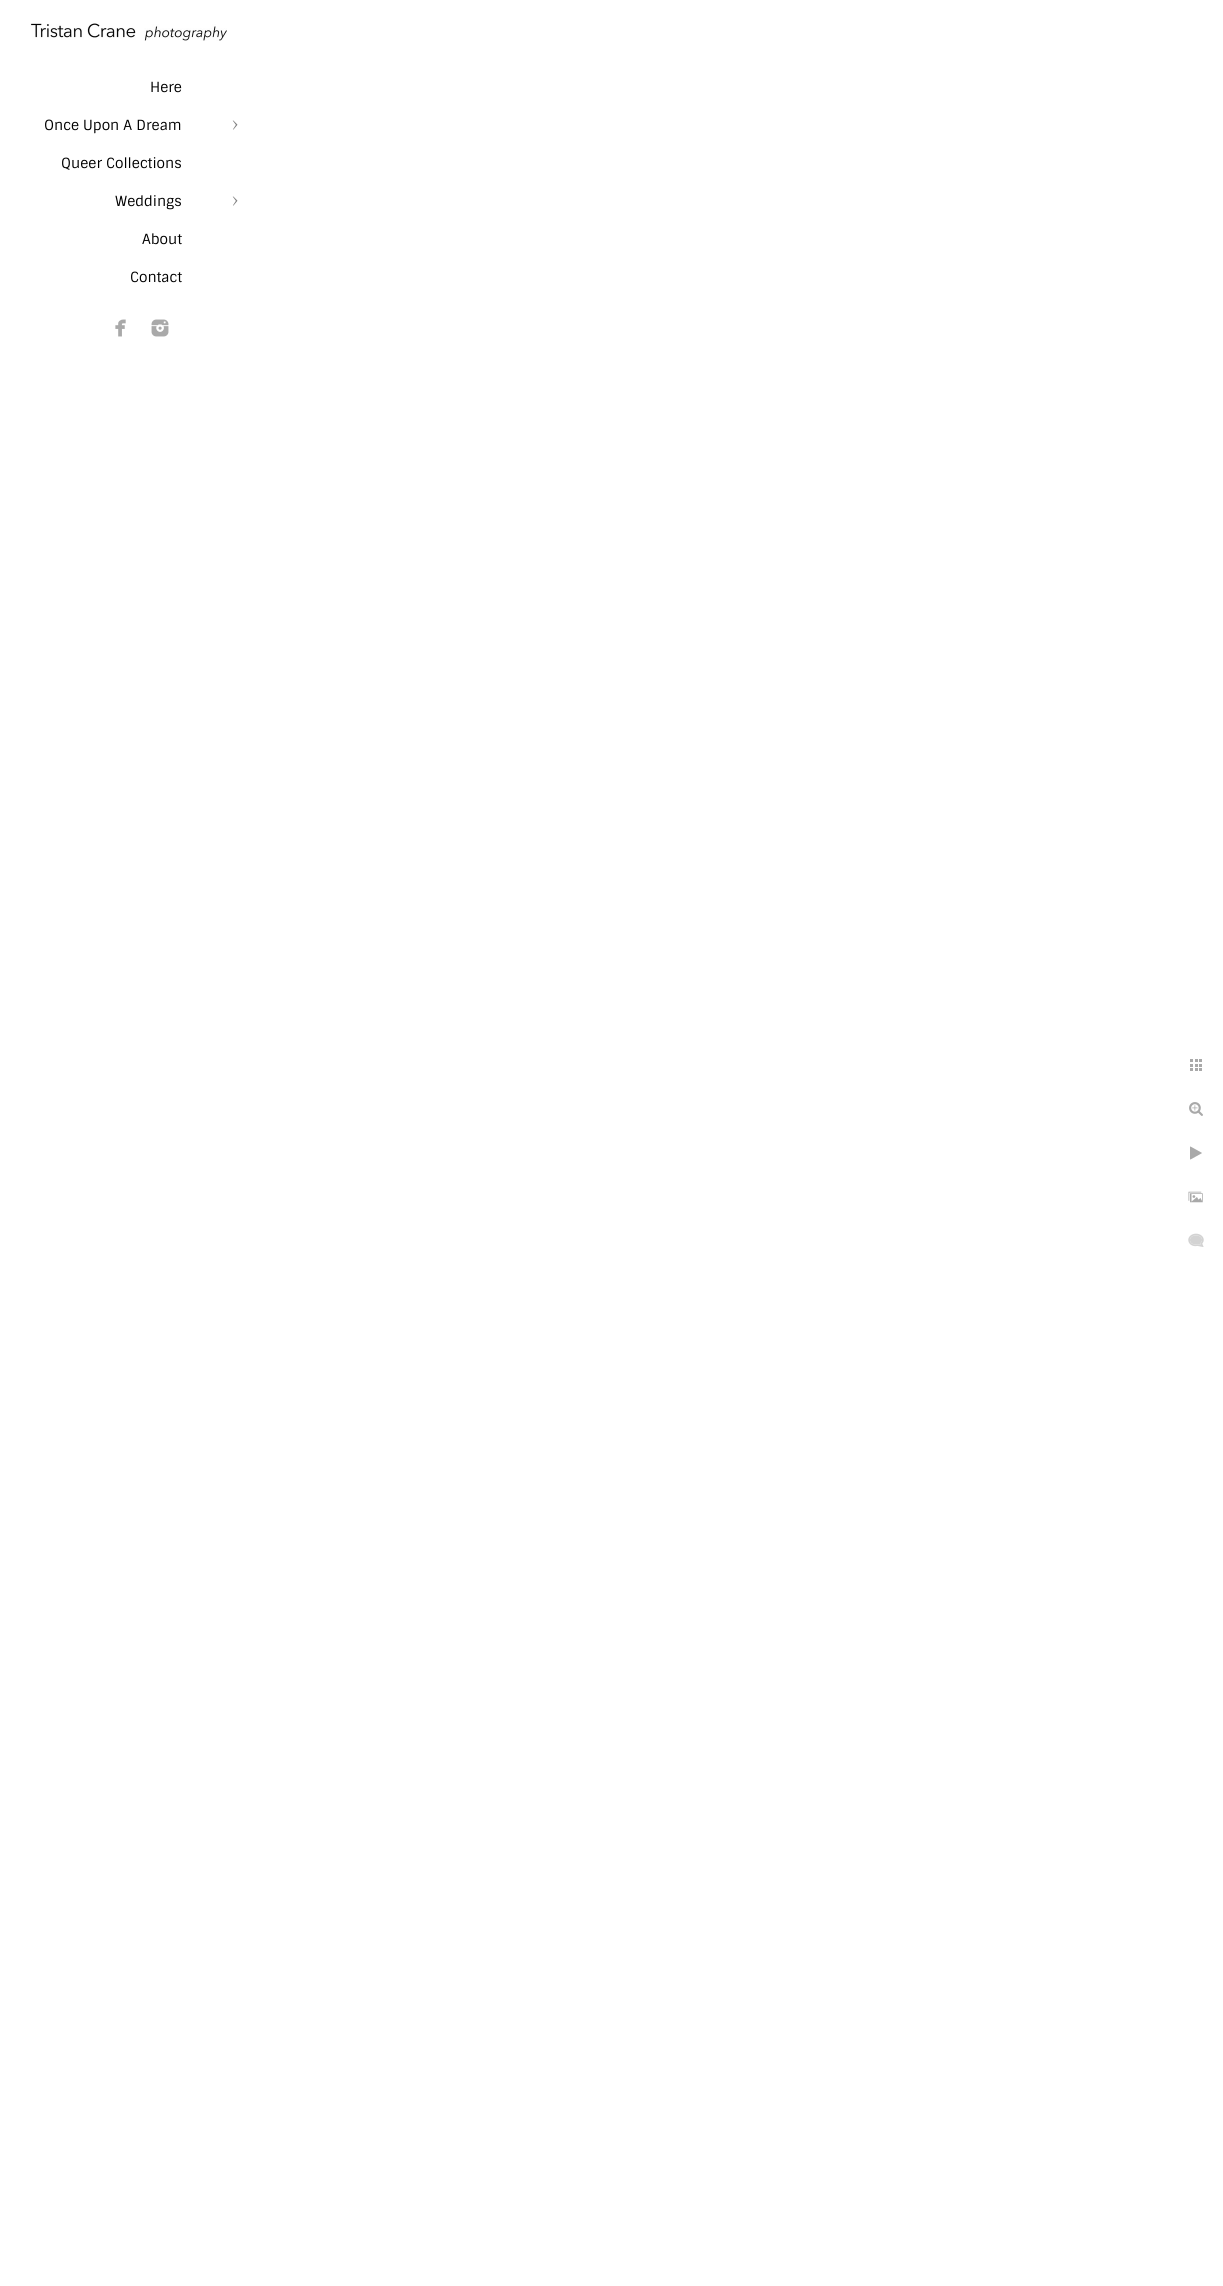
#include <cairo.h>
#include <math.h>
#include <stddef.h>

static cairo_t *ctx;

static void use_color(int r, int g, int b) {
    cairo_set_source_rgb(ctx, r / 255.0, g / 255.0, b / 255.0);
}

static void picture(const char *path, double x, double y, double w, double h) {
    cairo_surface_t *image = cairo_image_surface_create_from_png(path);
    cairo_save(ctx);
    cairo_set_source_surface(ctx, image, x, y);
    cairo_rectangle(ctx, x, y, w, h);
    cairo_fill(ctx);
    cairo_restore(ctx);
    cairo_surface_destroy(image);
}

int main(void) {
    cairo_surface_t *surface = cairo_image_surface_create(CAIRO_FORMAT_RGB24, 1223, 2286);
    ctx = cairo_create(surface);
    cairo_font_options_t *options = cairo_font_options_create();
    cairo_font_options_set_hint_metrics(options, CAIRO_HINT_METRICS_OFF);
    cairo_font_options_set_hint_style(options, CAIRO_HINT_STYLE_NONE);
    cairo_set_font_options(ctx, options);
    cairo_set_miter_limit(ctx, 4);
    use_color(255, 255, 255);
    cairo_paint(ctx);
    picture("img1.png", 30, 23, 197, 18);
    cairo_select_font_face(ctx, "Sintony", CAIRO_FONT_SLANT_NORMAL, CAIRO_FONT_WEIGHT_NORMAL);
    cairo_set_font_size(ctx, 14);
    use_color(0, 0, 0);
    cairo_move_to(ctx, 150, 92);
    cairo_show_text(ctx, "Here");
    cairo_move_to(ctx, 44, 130);
    cairo_show_text(ctx, "Once Upon A Dream");
    picture("img2.png", 232, 120, 6, 10);
    cairo_move_to(ctx, 61, 168);
    cairo_show_text(ctx, "Queer Collections");
    cairo_move_to(ctx, 115, 206);
    cairo_show_text(ctx, "Weddings");
    picture("img2.png", 232, 196, 6, 10);
    cairo_move_to(ctx, 142, 244);
    cairo_show_text(ctx, "About");
    cairo_move_to(ctx, 130, 282);
    cairo_show_text(ctx, "Contact");
    picture("img3.png", 115, 319, 11, 18);
    picture("img4.png", 151, 319, 18, 18);
    picture("img5.png", 1190, 1059, 12, 12);
    picture("img6.png", 1189, 1102, 14, 14);
    picture("img7.png", 1190, 1146, 12, 14);
    picture("img8.png", 1188, 1191, 15, 12);
    picture("img9.png", 1188, 1233, 16, 14);
    cairo_surface_write_to_png(surface, "result.png");
    cairo_font_options_destroy(options);
    cairo_destroy(ctx);
    cairo_surface_destroy(surface);
    return 0;
}
